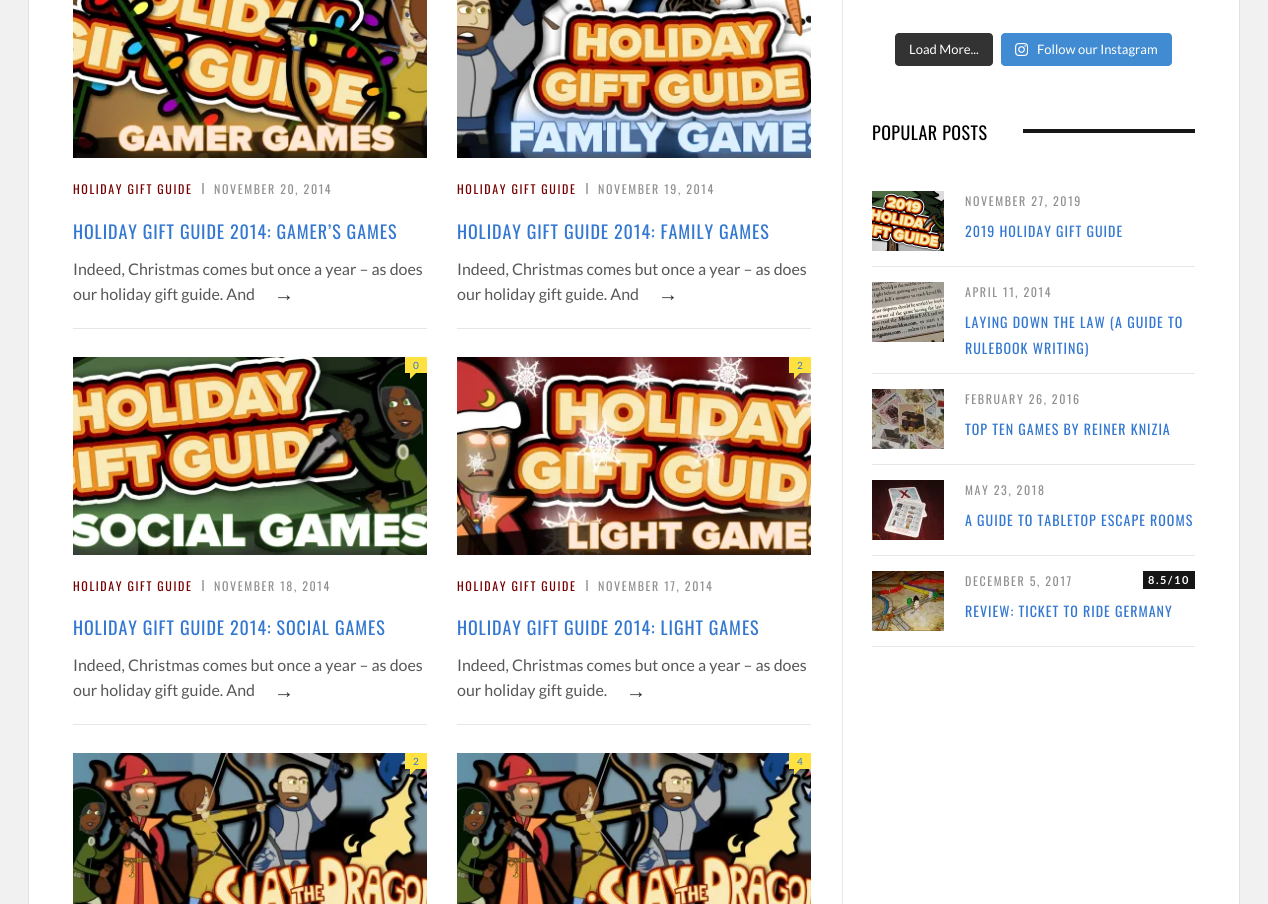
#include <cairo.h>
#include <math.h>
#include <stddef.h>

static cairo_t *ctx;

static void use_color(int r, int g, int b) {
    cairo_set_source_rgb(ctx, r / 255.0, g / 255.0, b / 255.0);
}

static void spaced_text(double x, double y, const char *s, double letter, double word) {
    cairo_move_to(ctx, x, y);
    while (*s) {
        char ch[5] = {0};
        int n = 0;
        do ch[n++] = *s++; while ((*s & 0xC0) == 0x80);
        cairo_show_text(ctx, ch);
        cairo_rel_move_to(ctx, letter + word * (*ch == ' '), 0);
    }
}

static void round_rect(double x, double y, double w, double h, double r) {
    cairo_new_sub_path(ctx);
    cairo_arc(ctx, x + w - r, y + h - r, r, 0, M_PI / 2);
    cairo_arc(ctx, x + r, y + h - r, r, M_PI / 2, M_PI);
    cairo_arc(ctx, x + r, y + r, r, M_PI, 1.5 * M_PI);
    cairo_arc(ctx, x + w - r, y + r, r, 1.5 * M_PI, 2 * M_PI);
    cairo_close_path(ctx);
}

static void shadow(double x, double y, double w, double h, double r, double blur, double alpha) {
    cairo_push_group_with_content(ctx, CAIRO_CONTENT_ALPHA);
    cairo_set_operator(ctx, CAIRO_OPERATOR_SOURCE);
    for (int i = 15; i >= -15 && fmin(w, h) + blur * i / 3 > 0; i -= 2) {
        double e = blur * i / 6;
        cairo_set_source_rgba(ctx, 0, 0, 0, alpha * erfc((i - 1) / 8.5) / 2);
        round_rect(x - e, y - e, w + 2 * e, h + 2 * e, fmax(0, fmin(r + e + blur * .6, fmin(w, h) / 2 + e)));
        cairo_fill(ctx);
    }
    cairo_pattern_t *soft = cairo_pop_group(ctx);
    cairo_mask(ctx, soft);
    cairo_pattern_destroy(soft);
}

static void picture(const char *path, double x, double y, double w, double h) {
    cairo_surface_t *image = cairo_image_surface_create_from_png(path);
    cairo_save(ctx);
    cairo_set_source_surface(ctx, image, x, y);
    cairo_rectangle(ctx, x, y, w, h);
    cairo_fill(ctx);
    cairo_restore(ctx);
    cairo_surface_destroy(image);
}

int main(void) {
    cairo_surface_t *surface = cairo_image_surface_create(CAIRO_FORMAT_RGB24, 1268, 904);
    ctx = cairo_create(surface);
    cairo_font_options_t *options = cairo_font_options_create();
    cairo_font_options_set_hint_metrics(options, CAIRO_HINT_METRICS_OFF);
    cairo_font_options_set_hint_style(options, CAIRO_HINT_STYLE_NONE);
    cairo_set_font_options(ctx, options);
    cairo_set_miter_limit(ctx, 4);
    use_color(241, 241, 241);
    cairo_paint(ctx);
    use_color(0, 0, 0);
    shadow(29, -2, 1210, 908, 0, 0.5, 0.25);
    use_color(255, 255, 255);
    cairo_rectangle(ctx, 29, 0, 1210, 904);
    cairo_fill(ctx);
    picture("img1.png", 73, 0, 354, 158);
    cairo_select_font_face(ctx, "Oswald", CAIRO_FONT_SLANT_NORMAL, CAIRO_FONT_WEIGHT_NORMAL);
    cairo_set_font_size(ctx, 12);
    use_color(117, 0, 0);
    spaced_text(73, 194, "HOLIDAY GIFT GUIDE", 1.6, 0);
    use_color(176, 176, 176);
    cairo_rectangle(ctx, 202, 183, 2, 11);
    cairo_fill(ctx);
    use_color(144, 144, 144);
    spaced_text(214, 194, "NOVEMBER 20, 2014", 1.6, 0);
    cairo_set_font_size(ctx, 18);
    use_color(50, 119, 209);
    spaced_text(73, 239, "HOLIDAY GIFT GUIDE 2014: GAMER’S GAMES", 0.9, 0);
    cairo_select_font_face(ctx, "Lato", CAIRO_FONT_SLANT_NORMAL, CAIRO_FONT_WEIGHT_NORMAL);
    cairo_set_font_size(ctx, 16);
    use_color(87, 87, 87);
    cairo_move_to(ctx, 73, 275);
    cairo_show_text(ctx, "Indeed, Christmas comes but once a year – as does");
    cairo_move_to(ctx, 73, 300);
    cairo_show_text(ctx, "our holiday gift guide. And");
    cairo_select_font_face(ctx, "Liberation Sans", CAIRO_FONT_SLANT_NORMAL, CAIRO_FONT_WEIGHT_NORMAL);
    cairo_set_font_size(ctx, 20);
    use_color(46, 46, 46);
    cairo_move_to(ctx, 274, 301);
    cairo_show_text(ctx, "→");
    picture("img2.png", 457, 0, 354, 158);
    cairo_select_font_face(ctx, "Oswald", CAIRO_FONT_SLANT_NORMAL, CAIRO_FONT_WEIGHT_NORMAL);
    cairo_set_font_size(ctx, 12);
    use_color(117, 0, 0);
    spaced_text(457, 194, "HOLIDAY GIFT GUIDE", 1.6, 0);
    use_color(176, 176, 176);
    cairo_rectangle(ctx, 586, 183, 2, 11);
    cairo_fill(ctx);
    use_color(144, 144, 144);
    spaced_text(598, 194, "NOVEMBER 19, 2014", 1.6, 0);
    cairo_set_font_size(ctx, 18);
    use_color(50, 119, 209);
    spaced_text(457, 239, "HOLIDAY GIFT GUIDE 2014: FAMILY GAMES", 0.9, 0);
    cairo_select_font_face(ctx, "Lato", CAIRO_FONT_SLANT_NORMAL, CAIRO_FONT_WEIGHT_NORMAL);
    cairo_set_font_size(ctx, 16);
    use_color(87, 87, 87);
    cairo_move_to(ctx, 457, 275);
    cairo_show_text(ctx, "Indeed, Christmas comes but once a year – as does");
    cairo_move_to(ctx, 457, 300);
    cairo_show_text(ctx, "our holiday gift guide. And");
    cairo_select_font_face(ctx, "Liberation Sans", CAIRO_FONT_SLANT_NORMAL, CAIRO_FONT_WEIGHT_NORMAL);
    cairo_set_font_size(ctx, 20);
    use_color(46, 46, 46);
    cairo_move_to(ctx, 658, 301);
    cairo_show_text(ctx, "→");
    use_color(230, 230, 230);
    cairo_rectangle(ctx, 73, 328, 354, 1);
    cairo_fill(ctx);
    picture("img3.png", 73, 357, 354, 198);
    use_color(255, 226, 64);
    cairo_rectangle(ctx, 405, 357, 22, 16);
    cairo_fill(ctx);
    cairo_select_font_face(ctx, "Lato", CAIRO_FONT_SLANT_NORMAL, CAIRO_FONT_WEIGHT_NORMAL);
    cairo_set_font_size(ctx, 10);
    use_color(50, 119, 209);
    cairo_move_to(ctx, 413, 369);
    cairo_show_text(ctx, "0");
    use_color(255, 226, 64);
    cairo_new_path(ctx);
    cairo_move_to(ctx, 410, 379);
    cairo_line_to(ctx, 410, 373);
    cairo_line_to(ctx, 416, 373);
    cairo_close_path(ctx);
    cairo_fill(ctx);
    cairo_select_font_face(ctx, "Oswald", CAIRO_FONT_SLANT_NORMAL, CAIRO_FONT_WEIGHT_NORMAL);
    cairo_set_font_size(ctx, 12);
    use_color(117, 0, 0);
    spaced_text(73, 591, "HOLIDAY GIFT GUIDE", 1.6, 0);
    use_color(176, 176, 176);
    cairo_rectangle(ctx, 202, 580, 2, 11);
    cairo_fill(ctx);
    use_color(144, 144, 144);
    spaced_text(214, 591, "NOVEMBER 18, 2014", 1.6, 0);
    cairo_set_font_size(ctx, 18);
    use_color(50, 119, 209);
    spaced_text(73, 635, "HOLIDAY GIFT GUIDE 2014: SOCIAL GAMES", 0.9, 0);
    cairo_select_font_face(ctx, "Lato", CAIRO_FONT_SLANT_NORMAL, CAIRO_FONT_WEIGHT_NORMAL);
    cairo_set_font_size(ctx, 16);
    use_color(87, 87, 87);
    cairo_move_to(ctx, 73, 671);
    cairo_show_text(ctx, "Indeed, Christmas comes but once a year – as does");
    cairo_move_to(ctx, 73, 696);
    cairo_show_text(ctx, "our holiday gift guide. And");
    cairo_select_font_face(ctx, "Liberation Sans", CAIRO_FONT_SLANT_NORMAL, CAIRO_FONT_WEIGHT_NORMAL);
    cairo_set_font_size(ctx, 20);
    use_color(46, 46, 46);
    cairo_move_to(ctx, 274, 698);
    cairo_show_text(ctx, "→");
    use_color(230, 230, 230);
    cairo_rectangle(ctx, 457, 328, 354, 1);
    cairo_fill(ctx);
    picture("img4.png", 457, 357, 354, 198);
    use_color(255, 226, 64);
    cairo_rectangle(ctx, 789, 357, 22, 16);
    cairo_fill(ctx);
    cairo_select_font_face(ctx, "Lato", CAIRO_FONT_SLANT_NORMAL, CAIRO_FONT_WEIGHT_NORMAL);
    cairo_set_font_size(ctx, 10);
    use_color(50, 119, 209);
    cairo_move_to(ctx, 797, 369);
    cairo_show_text(ctx, "2");
    use_color(255, 226, 64);
    cairo_new_path(ctx);
    cairo_move_to(ctx, 794, 379);
    cairo_line_to(ctx, 794, 373);
    cairo_line_to(ctx, 800, 373);
    cairo_close_path(ctx);
    cairo_fill(ctx);
    cairo_select_font_face(ctx, "Oswald", CAIRO_FONT_SLANT_NORMAL, CAIRO_FONT_WEIGHT_NORMAL);
    cairo_set_font_size(ctx, 12);
    use_color(117, 0, 0);
    spaced_text(457, 591, "HOLIDAY GIFT GUIDE", 1.6, 0);
    use_color(176, 176, 176);
    cairo_rectangle(ctx, 586, 580, 2, 11);
    cairo_fill(ctx);
    use_color(144, 144, 144);
    spaced_text(598, 591, "NOVEMBER 17, 2014", 1.6, 0);
    cairo_set_font_size(ctx, 18);
    use_color(50, 119, 209);
    spaced_text(457, 635, "HOLIDAY GIFT GUIDE 2014: LIGHT GAMES", 0.9, 0);
    cairo_select_font_face(ctx, "Lato", CAIRO_FONT_SLANT_NORMAL, CAIRO_FONT_WEIGHT_NORMAL);
    cairo_set_font_size(ctx, 16);
    use_color(87, 87, 87);
    cairo_move_to(ctx, 457, 671);
    cairo_show_text(ctx, "Indeed, Christmas comes but once a year – as does");
    cairo_move_to(ctx, 457, 696);
    cairo_show_text(ctx, "our holiday gift guide.");
    cairo_select_font_face(ctx, "Liberation Sans", CAIRO_FONT_SLANT_NORMAL, CAIRO_FONT_WEIGHT_NORMAL);
    cairo_set_font_size(ctx, 20);
    use_color(46, 46, 46);
    cairo_move_to(ctx, 626, 698);
    cairo_show_text(ctx, "→");
    use_color(230, 230, 230);
    cairo_rectangle(ctx, 73, 724, 354, 1);
    cairo_fill(ctx);
    picture("img5.png", 73, 753, 354, 151);
    use_color(255, 226, 64);
    cairo_rectangle(ctx, 405, 753, 22, 16);
    cairo_fill(ctx);
    cairo_select_font_face(ctx, "Lato", CAIRO_FONT_SLANT_NORMAL, CAIRO_FONT_WEIGHT_NORMAL);
    cairo_set_font_size(ctx, 10);
    use_color(50, 119, 209);
    cairo_move_to(ctx, 413, 765);
    cairo_show_text(ctx, "2");
    use_color(255, 226, 64);
    cairo_new_path(ctx);
    cairo_move_to(ctx, 410, 775);
    cairo_line_to(ctx, 410, 769);
    cairo_line_to(ctx, 416, 769);
    cairo_close_path(ctx);
    cairo_fill(ctx);
    use_color(230, 230, 230);
    cairo_rectangle(ctx, 457, 724, 354, 1);
    cairo_fill(ctx);
    picture("img5.png", 457, 753, 354, 151);
    use_color(255, 226, 64);
    cairo_rectangle(ctx, 789, 753, 22, 16);
    cairo_fill(ctx);
    use_color(50, 119, 209);
    cairo_move_to(ctx, 797, 765);
    cairo_show_text(ctx, "4");
    use_color(255, 226, 64);
    cairo_new_path(ctx);
    cairo_move_to(ctx, 794, 775);
    cairo_line_to(ctx, 794, 769);
    cairo_line_to(ctx, 800, 769);
    cairo_close_path(ctx);
    cairo_fill(ctx);
    use_color(230, 230, 230);
    cairo_rectangle(ctx, 842, 0, 1, 904);
    cairo_fill(ctx);
    use_color(51, 51, 51);
    round_rect(895, 33, 98, 33, 4);
    cairo_fill(ctx);
    cairo_set_font_size(ctx, 13);
    use_color(255, 255, 255);
    cairo_move_to(ctx, 909, 54);
    cairo_show_text(ctx, "Load More...");
    use_color(64, 139, 209);
    round_rect(1001, 33, 171, 33, 4);
    cairo_fill(ctx);
    picture("img6.png", 1015, 43, 13, 13);
    use_color(255, 255, 255);
    cairo_move_to(ctx, 1037, 54);
    cairo_show_text(ctx, "Follow our Instagram");
    cairo_select_font_face(ctx, "Oswald", CAIRO_FONT_SLANT_NORMAL, CAIRO_FONT_WEIGHT_NORMAL);
    cairo_set_font_size(ctx, 18);
    use_color(0, 0, 0);
    spaced_text(872, 140, "POPULAR POSTS", 0.5, 0);
    use_color(22, 22, 22);
    cairo_rectangle(ctx, 1023, 129, 172, 4);
    cairo_fill(ctx);
    use_color(230, 230, 230);
    cairo_rectangle(ctx, 872, 266, 323, 1);
    cairo_fill(ctx);
    picture("img7.png", 872, 191, 72, 60);
    cairo_set_font_size(ctx, 12);
    use_color(144, 144, 144);
    spaced_text(965, 206, "NOVEMBER 27, 2019", 1.6, 0);
    cairo_set_font_size(ctx, 14);
    use_color(50, 119, 209);
    spaced_text(965, 237, "2019 HOLIDAY GIFT GUIDE", 1, 0);
    use_color(230, 230, 230);
    cairo_rectangle(ctx, 872, 373, 323, 1);
    cairo_fill(ctx);
    picture("img8.png", 872, 282, 72, 60);
    cairo_set_font_size(ctx, 12);
    use_color(144, 144, 144);
    spaced_text(965, 297, "APRIL 11, 2014", 1.6, 0);
    cairo_set_font_size(ctx, 14);
    use_color(50, 119, 209);
    spaced_text(965, 328, "LAYING DOWN THE LAW (A GUIDE TO", 1, 0);
    spaced_text(965, 354, "RULEBOOK WRITING)", 1, 0);
    use_color(230, 230, 230);
    cairo_rectangle(ctx, 872, 464, 323, 1);
    cairo_fill(ctx);
    picture("img9.png", 872, 389, 72, 60);
    cairo_set_font_size(ctx, 12);
    use_color(144, 144, 144);
    spaced_text(965, 404, "FEBRUARY 26, 2016", 1.6, 0);
    cairo_set_font_size(ctx, 14);
    use_color(50, 119, 209);
    spaced_text(965, 435, "TOP TEN GAMES BY REINER KNIZIA", 1, 0);
    use_color(230, 230, 230);
    cairo_rectangle(ctx, 872, 555, 323, 1);
    cairo_fill(ctx);
    picture("img10.png", 872, 480, 72, 60);
    cairo_set_font_size(ctx, 12);
    use_color(144, 144, 144);
    spaced_text(965, 495, "MAY 23, 2018", 1.6, 0);
    cairo_set_font_size(ctx, 14);
    use_color(50, 119, 209);
    spaced_text(965, 526, "A GUIDE TO TABLETOP ESCAPE ROOMS", 1, 0);
    use_color(230, 230, 230);
    cairo_rectangle(ctx, 872, 646, 323, 1);
    cairo_fill(ctx);
    picture("img11.png", 872, 571, 72, 60);
    cairo_set_font_size(ctx, 12);
    use_color(144, 144, 144);
    spaced_text(965, 586, "DECEMBER 5, 2017", 1.6, 0);
    use_color(22, 22, 22);
    cairo_rectangle(ctx, 1143, 571, 52, 18);
    cairo_fill(ctx);
    cairo_select_font_face(ctx, "Lato", CAIRO_FONT_SLANT_NORMAL, CAIRO_FONT_WEIGHT_BOLD);
    cairo_set_font_size(ctx, 11);
    use_color(255, 255, 255);
    spaced_text(1148, 584, "8.5/10", 1.6, 0);
    cairo_select_font_face(ctx, "Oswald", CAIRO_FONT_SLANT_NORMAL, CAIRO_FONT_WEIGHT_NORMAL);
    cairo_set_font_size(ctx, 14);
    use_color(50, 119, 209);
    spaced_text(965, 617, "REVIEW: TICKET TO RIDE GERMANY", 1, 0);
    cairo_surface_write_to_png(surface, "result.png");
    cairo_font_options_destroy(options);
    cairo_destroy(ctx);
    cairo_surface_destroy(surface);
    return 0;
}
